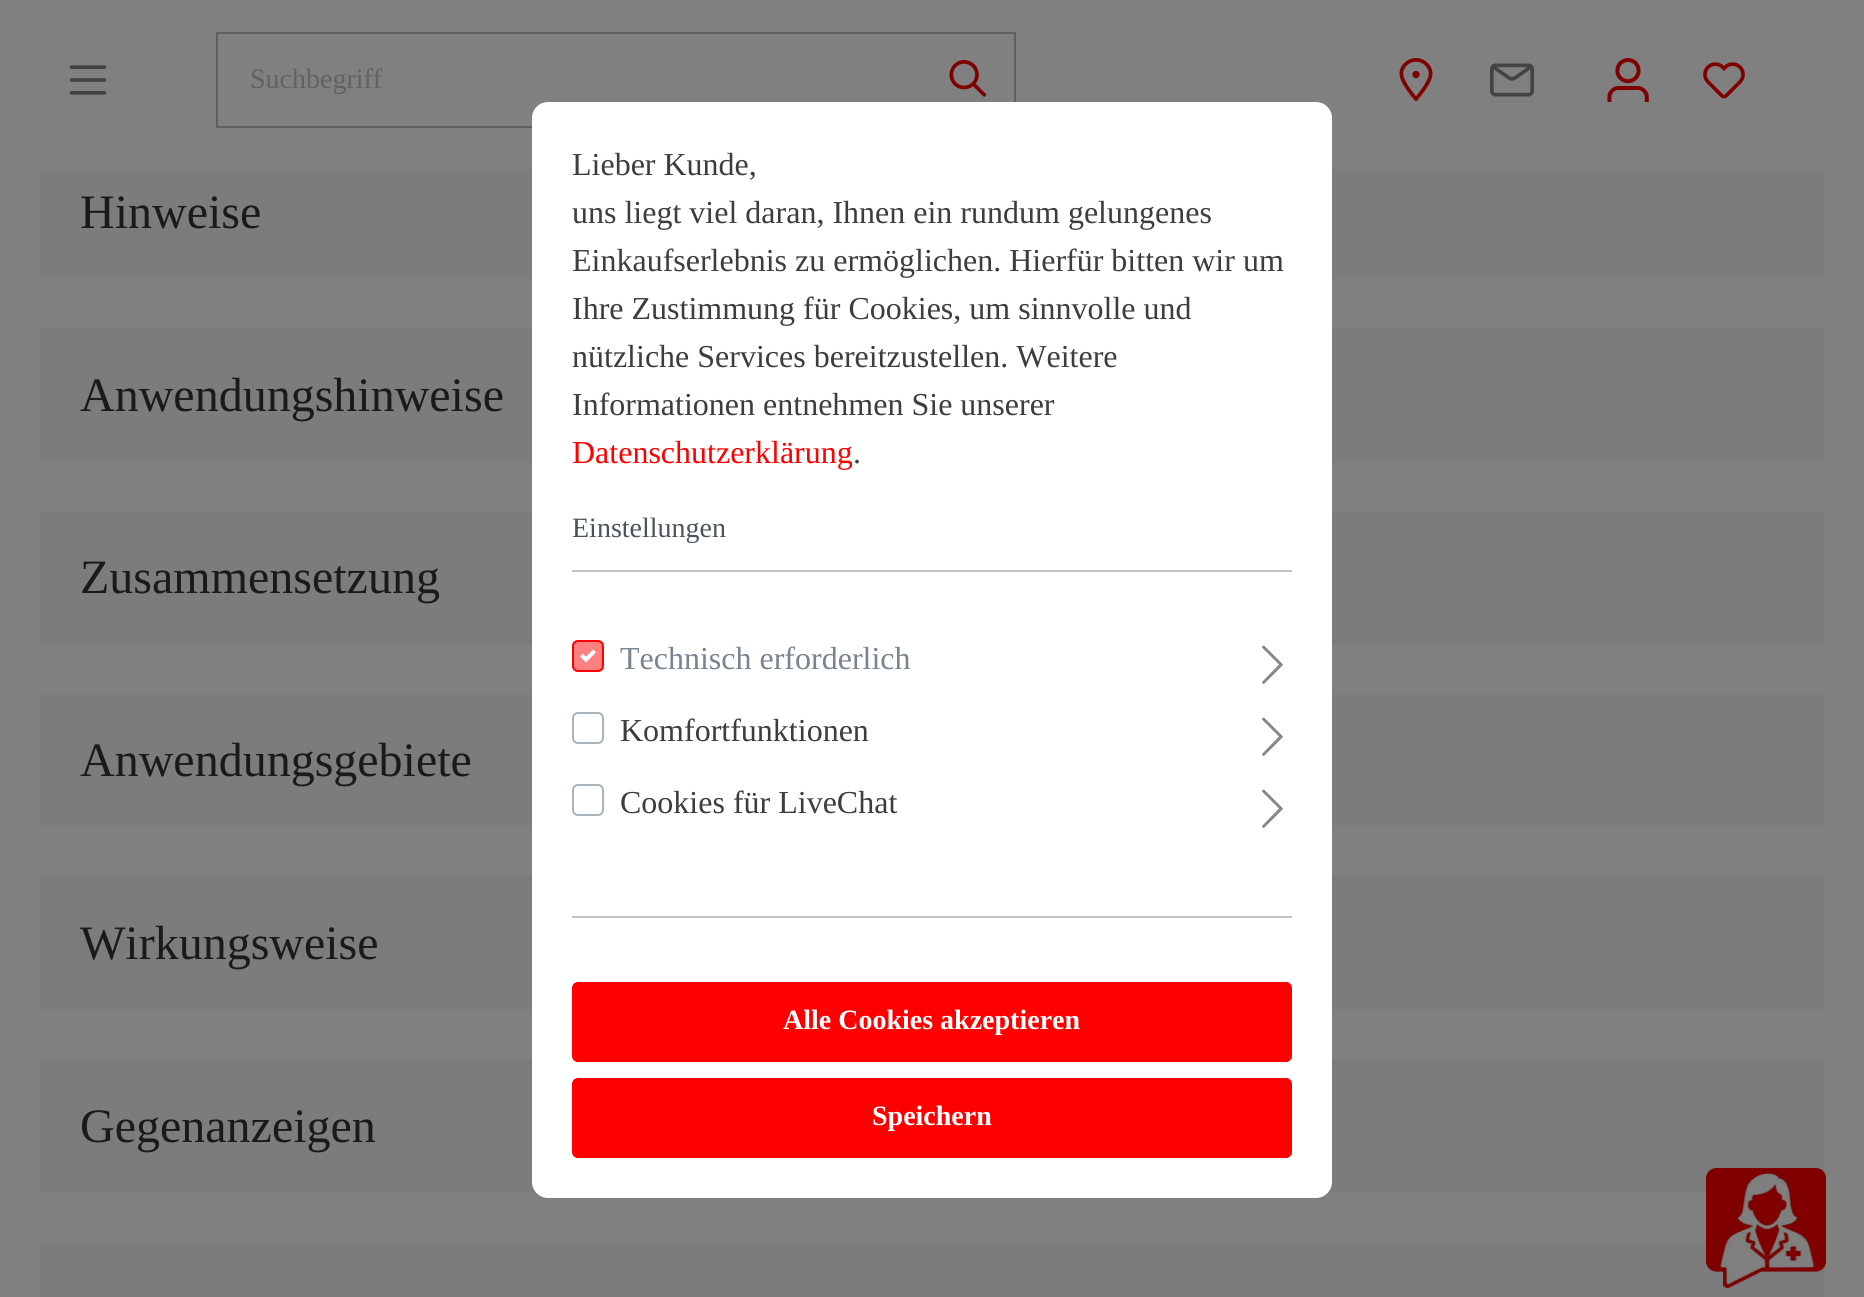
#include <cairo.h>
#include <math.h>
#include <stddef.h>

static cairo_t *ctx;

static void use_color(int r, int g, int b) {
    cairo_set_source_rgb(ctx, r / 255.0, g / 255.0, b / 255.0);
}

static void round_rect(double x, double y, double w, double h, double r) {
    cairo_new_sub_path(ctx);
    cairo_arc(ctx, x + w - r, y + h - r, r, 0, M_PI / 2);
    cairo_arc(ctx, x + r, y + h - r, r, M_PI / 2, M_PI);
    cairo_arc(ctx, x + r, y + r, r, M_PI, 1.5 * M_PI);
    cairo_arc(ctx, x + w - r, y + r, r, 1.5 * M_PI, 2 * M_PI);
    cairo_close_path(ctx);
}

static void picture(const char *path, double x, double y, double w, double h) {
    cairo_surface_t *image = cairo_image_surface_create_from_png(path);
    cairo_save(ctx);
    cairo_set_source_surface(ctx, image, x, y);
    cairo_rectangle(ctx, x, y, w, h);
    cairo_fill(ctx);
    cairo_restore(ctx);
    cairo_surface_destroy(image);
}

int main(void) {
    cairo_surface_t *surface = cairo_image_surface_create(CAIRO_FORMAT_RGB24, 1864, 1297);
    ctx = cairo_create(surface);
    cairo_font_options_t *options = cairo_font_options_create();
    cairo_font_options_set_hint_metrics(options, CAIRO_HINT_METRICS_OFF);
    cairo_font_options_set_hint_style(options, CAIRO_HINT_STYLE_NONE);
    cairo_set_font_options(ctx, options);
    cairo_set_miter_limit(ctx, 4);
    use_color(128, 128, 128);
    cairo_paint(ctx);
    picture("img1.png", 69, 65, 38, 30);
    use_color(94, 97, 100);
    cairo_rectangle(ctx, 216, 32, 800, 2);
    cairo_fill(ctx);
    cairo_rectangle(ctx, 216, 126, 316, 2);
    cairo_fill(ctx);
    cairo_rectangle(ctx, 216, 32, 2, 96);
    cairo_fill(ctx);
    cairo_select_font_face(ctx, "Liberation Serif", CAIRO_FONT_SLANT_NORMAL, CAIRO_FONT_WEIGHT_NORMAL);
    cairo_set_font_size(ctx, 28);
    use_color(98, 98, 98);
    cairo_move_to(ctx, 250, 88);
    cairo_show_text(ctx, "Suchbegriff");
    use_color(94, 97, 100);
    cairo_rectangle(ctx, 1014, 32, 2, 70);
    cairo_fill(ctx);
    picture("img2.png", 949, 60, 38, 37);
    picture("img3.png", 1399, 58, 34, 43);
    picture("img4.png", 1490, 63, 44, 34);
    picture("img5.png", 1607, 58, 42, 44);
    picture("img6.png", 1703, 62, 42, 37);
    use_color(124, 124, 124);
    cairo_rectangle(ctx, 40, 170, 1784, 108);
    cairo_fill(ctx);
    cairo_set_font_size(ctx, 48);
    use_color(26, 26, 26);
    cairo_move_to(ctx, 80, 228);
    cairo_show_text(ctx, "Hinweise");
    use_color(124, 124, 124);
    cairo_rectangle(ctx, 40, 328, 1784, 134);
    cairo_fill(ctx);
    use_color(26, 26, 26);
    cairo_move_to(ctx, 80, 411);
    cairo_show_text(ctx, "Anwendungshinweise");
    use_color(124, 124, 124);
    cairo_rectangle(ctx, 40, 512, 1784, 132);
    cairo_fill(ctx);
    use_color(26, 26, 26);
    cairo_move_to(ctx, 80, 593);
    cairo_show_text(ctx, "Zusammensetzung");
    use_color(124, 124, 124);
    cairo_rectangle(ctx, 40, 694, 1784, 132);
    cairo_fill(ctx);
    use_color(26, 26, 26);
    cairo_move_to(ctx, 80, 776);
    cairo_show_text(ctx, "Anwendungsgebiete");
    use_color(124, 124, 124);
    cairo_rectangle(ctx, 40, 876, 1784, 134);
    cairo_fill(ctx);
    use_color(26, 26, 26);
    cairo_move_to(ctx, 80, 959);
    cairo_show_text(ctx, "Wirkungsweise");
    use_color(124, 124, 124);
    cairo_rectangle(ctx, 40, 1060, 1784, 132);
    cairo_fill(ctx);
    use_color(26, 26, 26);
    cairo_move_to(ctx, 80, 1142);
    cairo_show_text(ctx, "Gegenanzeigen");
    use_color(124, 124, 124);
    cairo_rectangle(ctx, 40, 1242, 1784, 55);
    cairo_fill(ctx);
    use_color(255, 255, 255);
    round_rect(532, 102, 800, 1096, 16);
    cairo_fill(ctx);
    use_color(188, 193, 199);
    cairo_rectangle(ctx, 572, 570, 720, 2);
    cairo_fill(ctx);
    cairo_set_font_size(ctx, 32);
    use_color(61, 61, 59);
    cairo_move_to(ctx, 572, 175);
    cairo_show_text(ctx, "Lieber Kunde,");
    cairo_move_to(ctx, 572, 223);
    cairo_show_text(ctx, "uns liegt viel daran, Ihnen ein rundum gelungenes");
    cairo_move_to(ctx, 572, 271);
    cairo_show_text(ctx, "Einkaufserlebnis zu ermöglichen. Hierfür bitten wir um");
    cairo_move_to(ctx, 572, 319);
    cairo_show_text(ctx, "Ihre Zustimmung für Cookies, um sinnvolle und");
    cairo_move_to(ctx, 572, 367);
    cairo_show_text(ctx, "nützliche Services bereitzustellen. Weitere");
    cairo_move_to(ctx, 572, 415);
    cairo_show_text(ctx, "Informationen entnehmen Sie unserer");
    use_color(254, 0, 0);
    cairo_move_to(ctx, 572, 463);
    cairo_show_text(ctx, "Datenschutzerklärung");
    use_color(61, 61, 59);
    cairo_move_to(ctx, 853, 463);
    cairo_show_text(ctx, ".");
    cairo_set_font_size(ctx, 28);
    use_color(74, 84, 91);
    cairo_move_to(ctx, 572, 537);
    cairo_show_text(ctx, "Einstellungen");
    use_color(188, 193, 199);
    cairo_rectangle(ctx, 572, 916, 720, 2);
    cairo_fill(ctx);
    use_color(255, 128, 128);
    round_rect(573, 641, 30, 30, 5);
    cairo_fill_preserve(ctx);
    use_color(254, 0, 0);
    cairo_stroke(ctx);
    cairo_set_font_size(ctx, 32);
    use_color(121, 132, 144);
    cairo_move_to(ctx, 620, 669);
    cairo_show_text(ctx, "Technisch erforderlich");
    picture("img7.png", 580, 649, 16, 14);
    use_color(135, 135, 135);
    cairo_set_fill_rule(ctx, CAIRO_FILL_RULE_EVEN_ODD);
    cairo_new_path(ctx);
    cairo_move_to(ctx, 1279, 664.5);
    cairo_line_to(ctx, 1262.5, 681.5);
    cairo_curve_to(ctx, 1261.5, 682, 1262, 683.5, 1263.5, 684);
    cairo_line_to(ctx, 1264.5, 683.5);
    cairo_line_to(ctx, 1282.5, 665.5);
    cairo_line_to(ctx, 1283, 665);
    cairo_line_to(ctx, 1282.5, 664);
    cairo_line_to(ctx, 1264.5, 646);
    cairo_line_to(ctx, 1263.5, 645.5);
    cairo_curve_to(ctx, 1262, 646, 1261.5, 647.5, 1262.5, 648);
    cairo_close_path(ctx);
    cairo_fill(ctx);
    round_rect(573, 713, 30, 30, 5);
    use_color(173, 181, 189);
    cairo_stroke(ctx);
    use_color(61, 61, 59);
    cairo_move_to(ctx, 620, 741);
    cairo_show_text(ctx, "Komfortfunktionen");
    use_color(135, 135, 135);
    cairo_new_path(ctx);
    cairo_move_to(ctx, 1279, 736.5);
    cairo_line_to(ctx, 1262.5, 753.5);
    cairo_curve_to(ctx, 1261.5, 754, 1262, 755.5, 1263.5, 756);
    cairo_line_to(ctx, 1264.5, 755.5);
    cairo_line_to(ctx, 1282.5, 737.5);
    cairo_line_to(ctx, 1283, 737);
    cairo_line_to(ctx, 1282.5, 736);
    cairo_line_to(ctx, 1264.5, 718);
    cairo_line_to(ctx, 1263.5, 717.5);
    cairo_curve_to(ctx, 1262, 718, 1261.5, 719.5, 1262.5, 720);
    cairo_close_path(ctx);
    cairo_fill(ctx);
    round_rect(573, 785, 30, 30, 5);
    use_color(173, 181, 189);
    cairo_stroke(ctx);
    use_color(61, 61, 59);
    cairo_move_to(ctx, 620, 813);
    cairo_show_text(ctx, "Cookies für LiveChat");
    use_color(135, 135, 135);
    cairo_new_path(ctx);
    cairo_move_to(ctx, 1279, 808.5);
    cairo_line_to(ctx, 1262.5, 825.5);
    cairo_curve_to(ctx, 1261.5, 826, 1262, 827.5, 1263.5, 828);
    cairo_line_to(ctx, 1264.5, 827.5);
    cairo_line_to(ctx, 1282.5, 809.5);
    cairo_line_to(ctx, 1283, 809);
    cairo_line_to(ctx, 1282.5, 808);
    cairo_line_to(ctx, 1264.5, 790);
    cairo_line_to(ctx, 1263.5, 789.5);
    cairo_curve_to(ctx, 1262, 790, 1261.5, 791.5, 1262.5, 792);
    cairo_close_path(ctx);
    cairo_fill(ctx);
    use_color(254, 0, 0);
    round_rect(573, 983, 718, 78, 5);
    cairo_fill_preserve(ctx);
    cairo_stroke(ctx);
    cairo_select_font_face(ctx, "Liberation Serif", CAIRO_FONT_SLANT_NORMAL, CAIRO_FONT_WEIGHT_BOLD);
    cairo_set_font_size(ctx, 28);
    use_color(255, 255, 255);
    cairo_move_to(ctx, 783, 1029);
    cairo_show_text(ctx, "Alle Cookies akzeptieren");
    use_color(254, 0, 0);
    round_rect(573, 1079, 718, 78, 5);
    cairo_fill_preserve(ctx);
    cairo_stroke(ctx);
    use_color(255, 255, 255);
    cairo_move_to(ctx, 872, 1125);
    cairo_show_text(ctx, "Speichern");
    picture("img8.png", 1706, 1168, 120, 120);
    cairo_surface_write_to_png(surface, "result.png");
    cairo_font_options_destroy(options);
    cairo_destroy(ctx);
    cairo_surface_destroy(surface);
    return 0;
}
